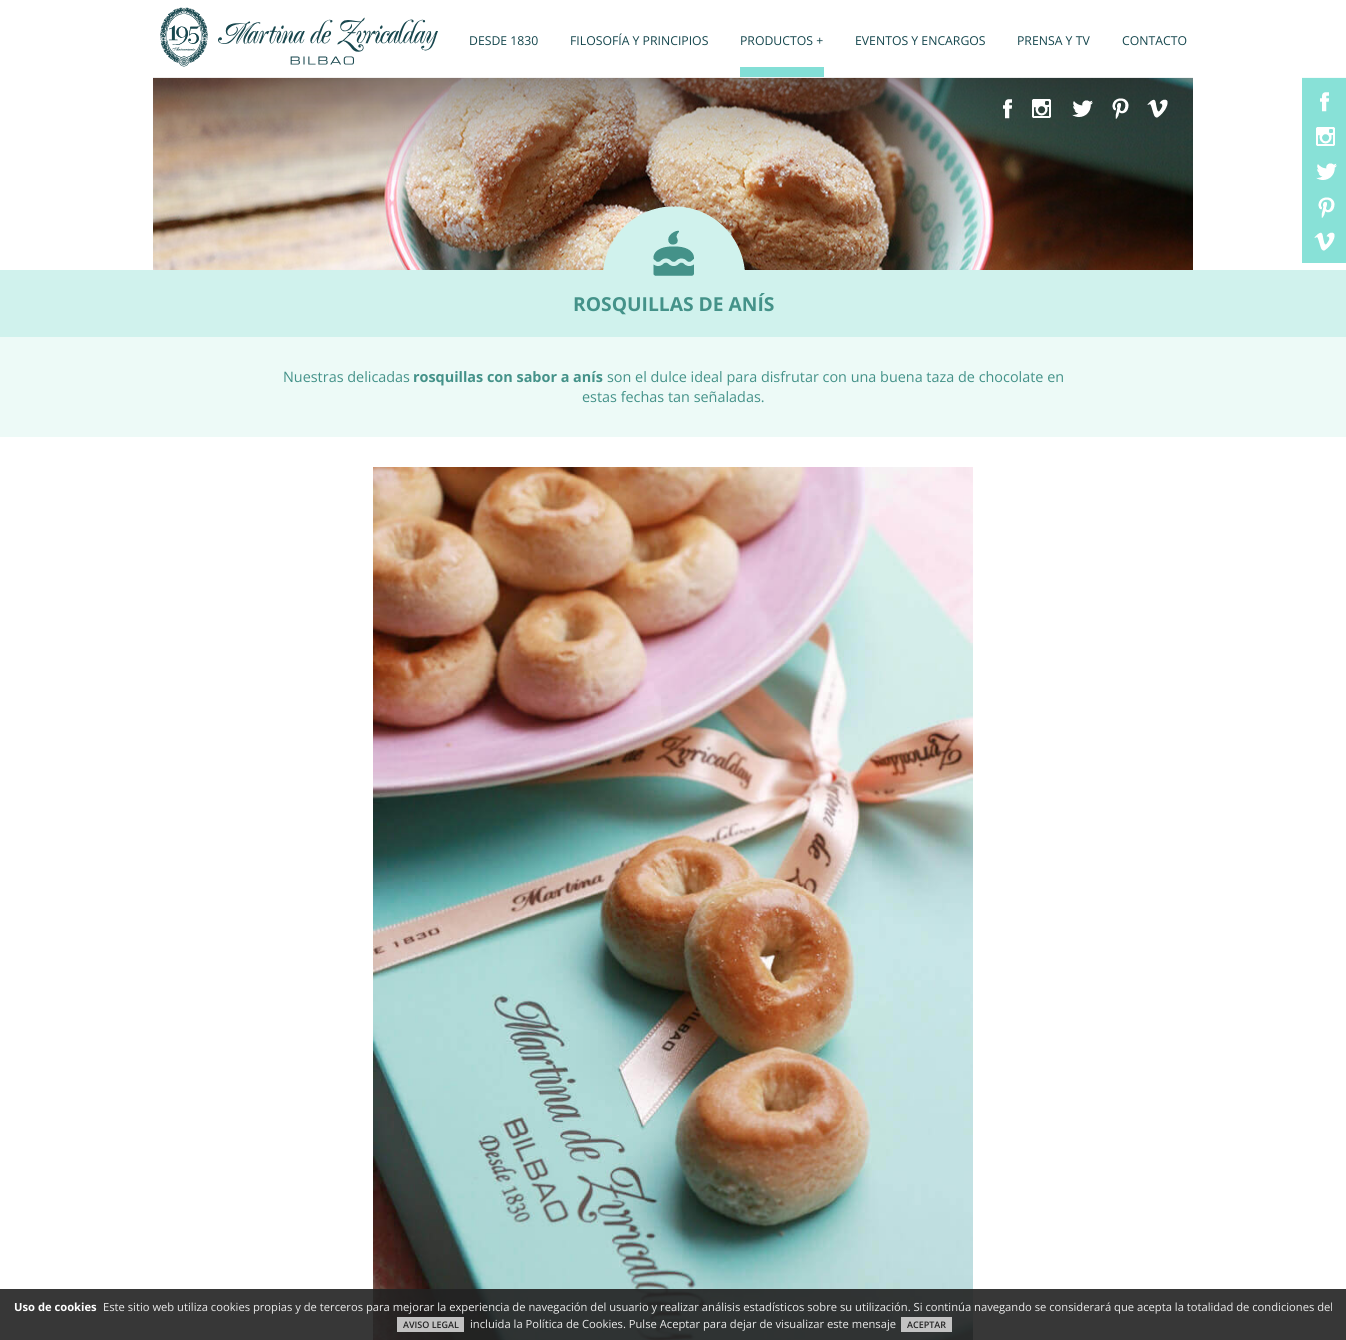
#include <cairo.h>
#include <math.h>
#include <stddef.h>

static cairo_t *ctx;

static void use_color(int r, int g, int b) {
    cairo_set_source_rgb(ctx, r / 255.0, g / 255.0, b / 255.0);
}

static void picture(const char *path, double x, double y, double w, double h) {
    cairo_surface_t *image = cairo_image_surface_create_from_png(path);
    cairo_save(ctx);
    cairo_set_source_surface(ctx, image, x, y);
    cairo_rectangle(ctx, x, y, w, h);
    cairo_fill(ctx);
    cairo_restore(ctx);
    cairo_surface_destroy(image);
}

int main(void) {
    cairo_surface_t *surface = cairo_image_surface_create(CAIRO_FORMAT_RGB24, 1346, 1340);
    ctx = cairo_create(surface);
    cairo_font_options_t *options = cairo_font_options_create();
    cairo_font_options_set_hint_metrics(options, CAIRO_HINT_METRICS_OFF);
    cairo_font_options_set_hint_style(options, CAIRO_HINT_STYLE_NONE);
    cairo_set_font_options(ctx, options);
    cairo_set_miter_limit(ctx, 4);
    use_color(255, 255, 255);
    cairo_paint(ctx);
    use_color(136, 225, 215);
    cairo_rectangle(ctx, 1302, 77, 44, 186);
    cairo_fill(ctx);
    picture("img8.png", 153, 77, 1040, 193);
    picture("img9.png", 153, 77, 1040, 103);
    cairo_set_source_rgba(ctx, 1, 1, 1, 0.9);
    cairo_rectangle(ctx, 153, 77, 1193, 1);
    cairo_fill(ctx);
    picture("img1.png", 160, 7, 48, 60);
    picture("img2.png", 218, 17, 220, 48);
    cairo_select_font_face(ctx, "Open Sans", CAIRO_FONT_SLANT_NORMAL, CAIRO_FONT_WEIGHT_NORMAL);
    cairo_set_font_size(ctx, 12.25);
    use_color(19, 69, 76);
    cairo_move_to(ctx, 469, 45);
    cairo_show_text(ctx, "DESDE 1830");
    cairo_move_to(ctx, 570, 45);
    cairo_show_text(ctx, "FILOSOFÍA Y PRINCIPIOS");
    use_color(131, 223, 214);
    cairo_rectangle(ctx, 740, 67, 84, 10);
    cairo_fill(ctx);
    use_color(19, 69, 76);
    cairo_move_to(ctx, 740, 45);
    cairo_show_text(ctx, "PRODUCTOS +");
    cairo_move_to(ctx, 855, 45);
    cairo_show_text(ctx, "EVENTOS Y ENCARGOS");
    cairo_move_to(ctx, 1017, 45);
    cairo_show_text(ctx, "PRENSA Y TV");
    cairo_move_to(ctx, 1122, 45);
    cairo_show_text(ctx, "CONTACTO");
    picture("img3.png", 1320, 92, 9, 20);
    picture("img4.png", 1316, 127, 19, 19);
    picture("img5.png", 1316, 163, 21, 17);
    picture("img6.png", 1318, 197, 17, 21);
    picture("img7.png", 1314, 232, 21, 19);
    picture("img10.png", 1003, 98, 165, 21);
    use_color(208, 242, 237);
    cairo_rectangle(ctx, 0, 270, 1346, 67);
    cairo_fill(ctx);
    picture("img11.png", 603, 206, 142, 70);
    cairo_select_font_face(ctx, "Open Sans", CAIRO_FONT_SLANT_NORMAL, CAIRO_FONT_WEIGHT_BOLD);
    cairo_set_font_size(ctx, 19.25);
    use_color(68, 146, 137);
    cairo_move_to(ctx, 573, 311);
    cairo_show_text(ctx, "ROSQUILLAS DE ANÍS");
    use_color(237, 250, 247);
    cairo_rectangle(ctx, 0, 337, 1346, 100);
    cairo_fill(ctx);
    cairo_select_font_face(ctx, "Open Sans", CAIRO_FONT_SLANT_NORMAL, CAIRO_FONT_WEIGHT_NORMAL);
    cairo_set_font_size(ctx, 14.4);
    use_color(68, 146, 137);
    cairo_move_to(ctx, 283, 382);
    cairo_show_text(ctx, "Nuestras delicadas");
    cairo_select_font_face(ctx, "Open Sans", CAIRO_FONT_SLANT_NORMAL, CAIRO_FONT_WEIGHT_BOLD);
    cairo_move_to(ctx, 413, 382);
    cairo_show_text(ctx, "rosquillas con sabor a anís");
    cairo_select_font_face(ctx, "Open Sans", CAIRO_FONT_SLANT_NORMAL, CAIRO_FONT_WEIGHT_NORMAL);
    cairo_move_to(ctx, 607, 382);
    cairo_show_text(ctx, "son el dulce ideal para disfrutar con una buena taza de chocolate en");
    cairo_move_to(ctx, 582, 402);
    cairo_show_text(ctx, "estas fechas tan señaladas.");
    picture("img12.png", 373, 467, 600, 873);
    cairo_set_source_rgba(ctx, 0.133, 0.133, 0.133, 0.9);
    cairo_rectangle(ctx, 0, 1289, 1346, 51);
    cairo_fill(ctx);
    cairo_select_font_face(ctx, "Open Sans", CAIRO_FONT_SLANT_NORMAL, CAIRO_FONT_WEIGHT_BOLD);
    cairo_set_font_size(ctx, 11.2);
    use_color(255, 255, 255);
    cairo_move_to(ctx, 14, 1311);
    cairo_show_text(ctx, "Uso de cookies");
    cairo_select_font_face(ctx, "Open Sans", CAIRO_FONT_SLANT_NORMAL, CAIRO_FONT_WEIGHT_NORMAL);
    use_color(235, 235, 235);
    cairo_move_to(ctx, 103, 1311);
    cairo_show_text(ctx, "Este sitio web utiliza cookies propias y de terceros para mejorar la experiencia de navegación del usuario y realizar análisis estadísticos sobre su utilización. Si continúa navegando se considerará que acepta la totalidad de condiciones del");
    cairo_set_source_rgba(ctx, 0.827, 0.827, 0.827, 0.9);
    cairo_rectangle(ctx, 397, 1317, 67, 15);
    cairo_fill(ctx);
    cairo_select_font_face(ctx, "Open Sans SemiBold", CAIRO_FONT_SLANT_NORMAL, CAIRO_FONT_WEIGHT_NORMAL);
    cairo_set_font_size(ctx, 9);
    use_color(35, 35, 35);
    cairo_move_to(ctx, 403, 1328);
    cairo_show_text(ctx, "AVISO LEGAL");
    cairo_select_font_face(ctx, "Open Sans", CAIRO_FONT_SLANT_NORMAL, CAIRO_FONT_WEIGHT_NORMAL);
    cairo_set_font_size(ctx, 11.2);
    use_color(235, 235, 235);
    cairo_move_to(ctx, 470, 1328);
    cairo_show_text(ctx, "incluida la Política de Cookies. Pulse Aceptar para dejar de visualizar este mensaje");
    cairo_set_source_rgba(ctx, 0.827, 0.827, 0.827, 0.9);
    cairo_rectangle(ctx, 901, 1317, 51, 15);
    cairo_fill(ctx);
    cairo_select_font_face(ctx, "Open Sans SemiBold", CAIRO_FONT_SLANT_NORMAL, CAIRO_FONT_WEIGHT_NORMAL);
    cairo_set_font_size(ctx, 9);
    use_color(35, 35, 35);
    cairo_move_to(ctx, 907, 1328);
    cairo_show_text(ctx, "ACEPTAR");
    cairo_surface_write_to_png(surface, "result.png");
    cairo_font_options_destroy(options);
    cairo_destroy(ctx);
    cairo_surface_destroy(surface);
    return 0;
}
